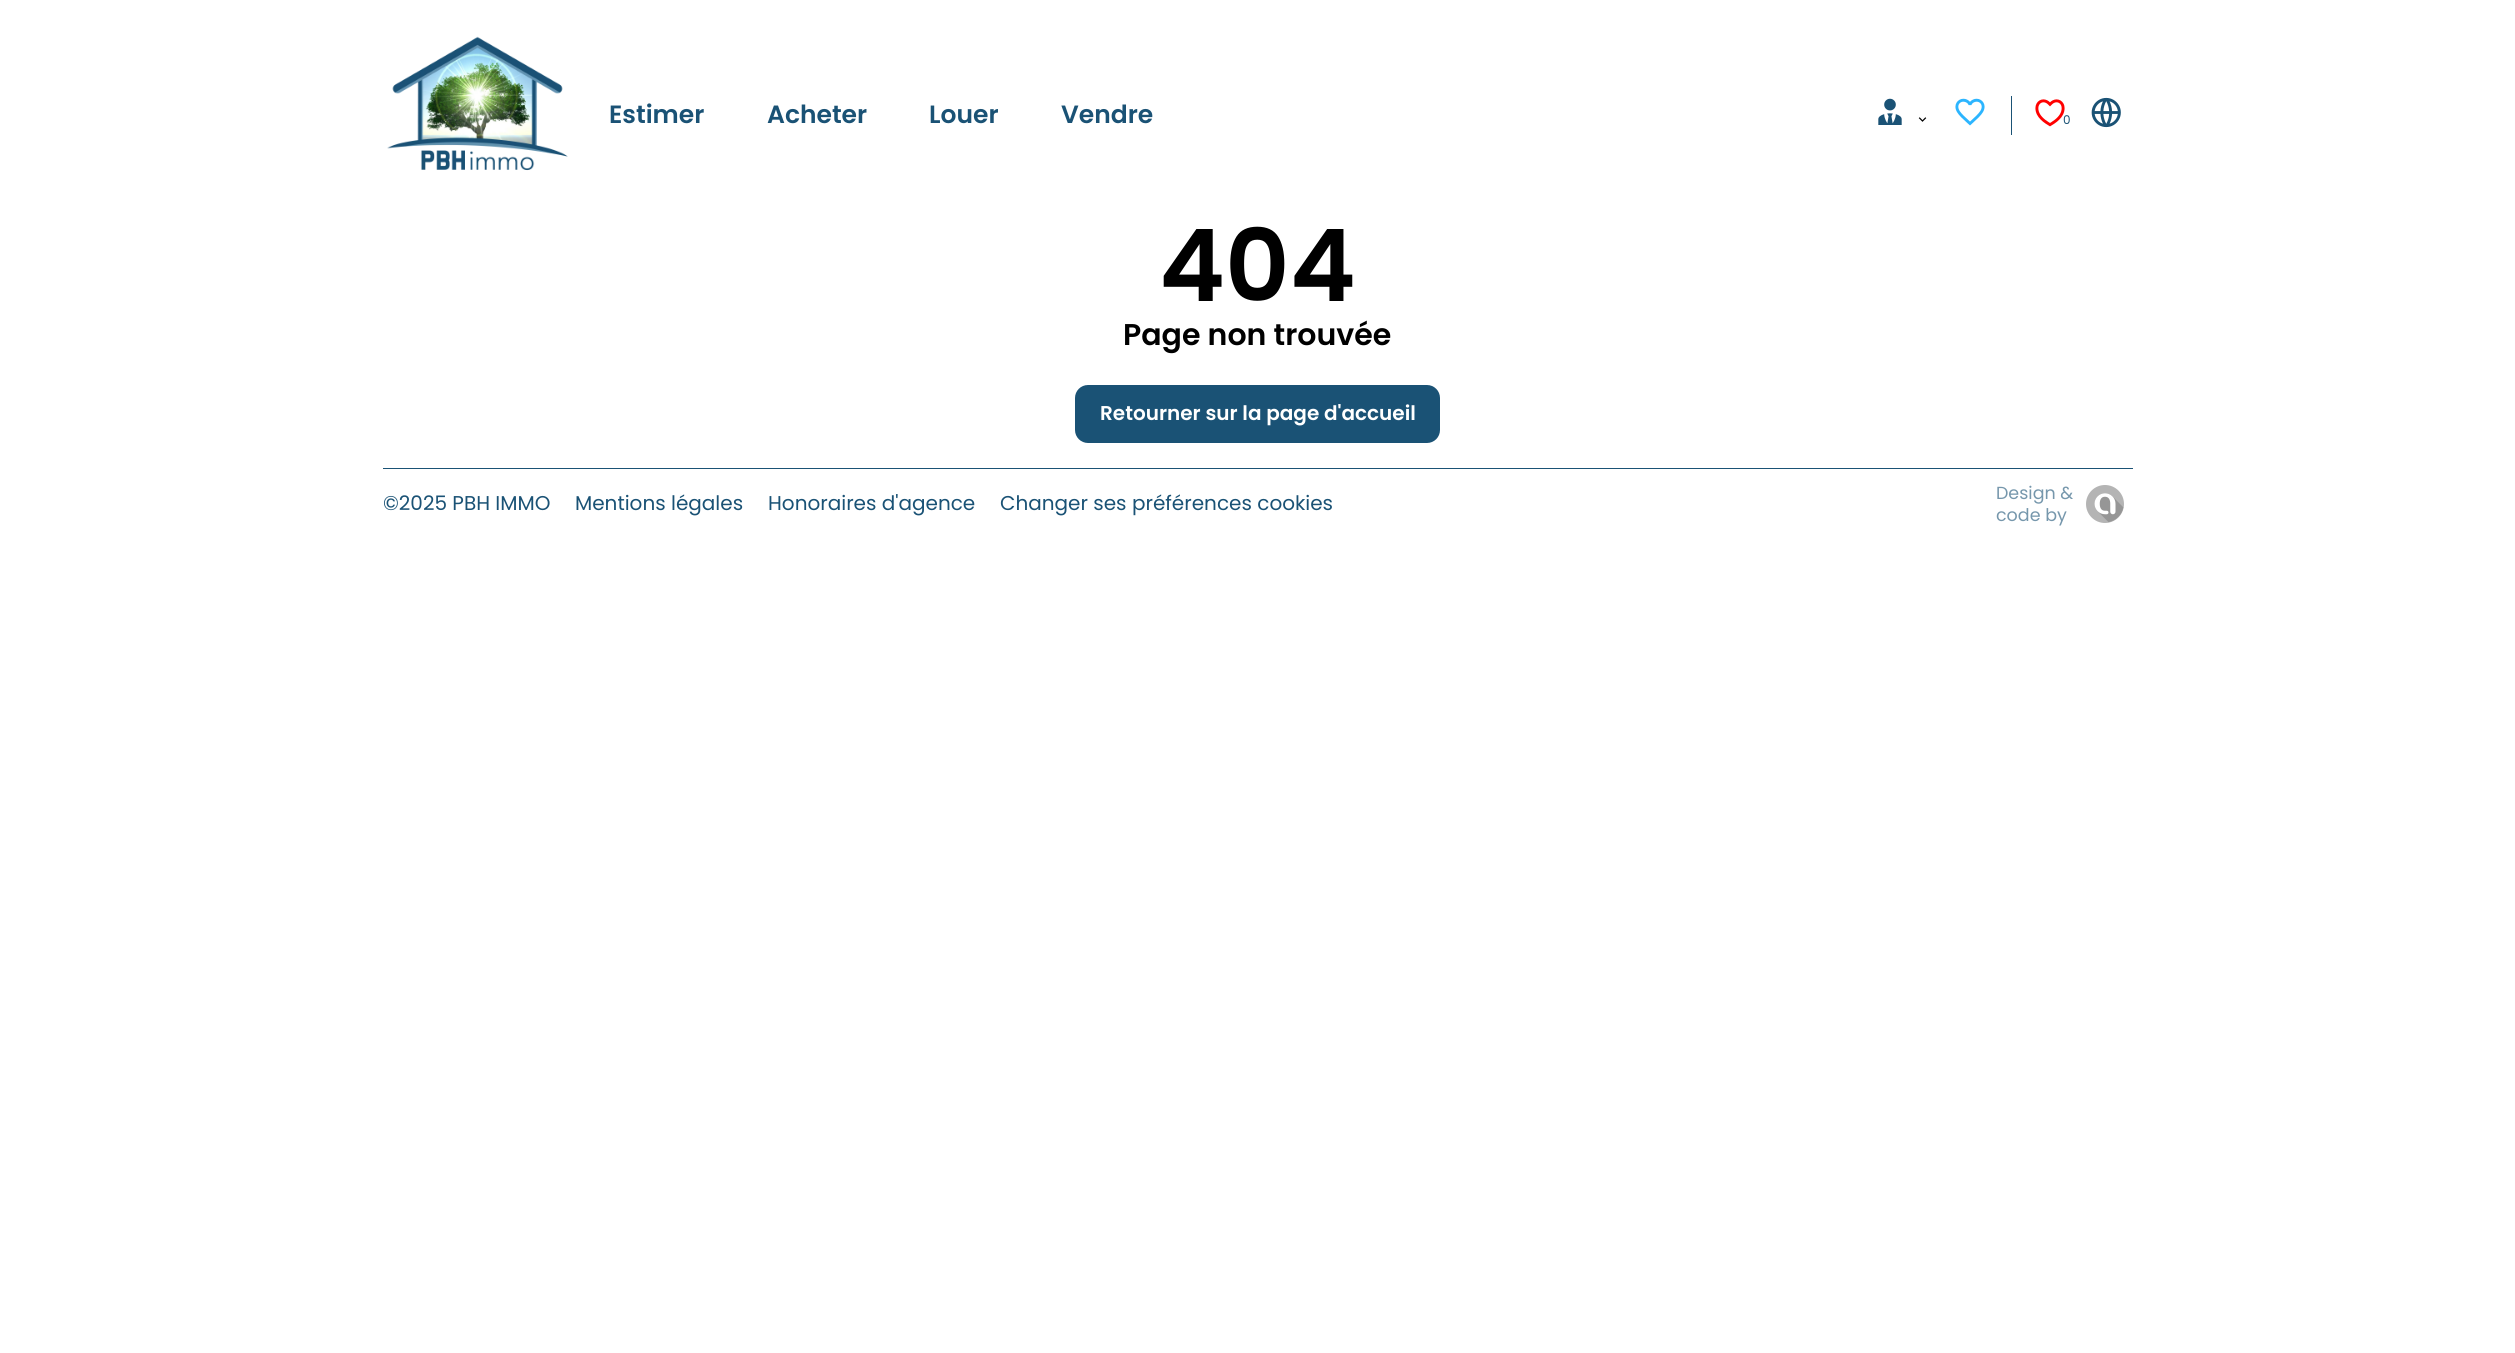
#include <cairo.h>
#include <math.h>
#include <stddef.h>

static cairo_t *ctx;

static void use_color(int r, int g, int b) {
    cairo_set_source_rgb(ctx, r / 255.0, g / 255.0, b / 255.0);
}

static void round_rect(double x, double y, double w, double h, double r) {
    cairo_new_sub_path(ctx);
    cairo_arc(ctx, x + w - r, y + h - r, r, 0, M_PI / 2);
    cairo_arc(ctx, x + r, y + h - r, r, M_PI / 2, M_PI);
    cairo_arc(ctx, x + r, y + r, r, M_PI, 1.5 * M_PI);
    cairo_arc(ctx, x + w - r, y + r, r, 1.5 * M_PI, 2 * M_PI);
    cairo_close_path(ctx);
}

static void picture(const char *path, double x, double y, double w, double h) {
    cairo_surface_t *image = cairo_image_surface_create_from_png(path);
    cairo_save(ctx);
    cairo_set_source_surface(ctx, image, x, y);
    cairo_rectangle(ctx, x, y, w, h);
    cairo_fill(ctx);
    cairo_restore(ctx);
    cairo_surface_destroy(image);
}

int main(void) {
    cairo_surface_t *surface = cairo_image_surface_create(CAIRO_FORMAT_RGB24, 2515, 1353);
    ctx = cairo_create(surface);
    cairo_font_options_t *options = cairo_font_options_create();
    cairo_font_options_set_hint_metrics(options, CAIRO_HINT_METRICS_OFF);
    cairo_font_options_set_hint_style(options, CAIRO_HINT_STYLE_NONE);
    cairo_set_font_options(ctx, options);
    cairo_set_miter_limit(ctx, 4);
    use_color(255, 255, 255);
    cairo_paint(ctx);
    picture("img1.png", 387, 36, 181, 135);
    cairo_select_font_face(ctx, "Poppins SemiBold", CAIRO_FONT_SLANT_NORMAL, CAIRO_FONT_WEIGHT_NORMAL);
    cairo_set_font_size(ctx, 25);
    use_color(26, 82, 117);
    cairo_move_to(ctx, 609, 123);
    cairo_show_text(ctx, "Estimer");
    cairo_move_to(ctx, 767, 123);
    cairo_show_text(ctx, "Acheter");
    cairo_move_to(ctx, 929, 123);
    cairo_show_text(ctx, "Louer");
    cairo_move_to(ctx, 1061, 123);
    cairo_show_text(ctx, "Vendre");
    cairo_rectangle(ctx, 2011, 96, 1, 39);
    cairo_fill(ctx);
    picture("img2.png", 1878, 98, 24, 27);
    picture("img3.png", 1918, 117, 9, 5);
    picture("img4.png", 1955, 98, 30, 28);
    picture("img5.png", 2035, 99, 30, 28);
    cairo_select_font_face(ctx, "Poppins", CAIRO_FONT_SLANT_NORMAL, CAIRO_FONT_WEIGHT_NORMAL);
    cairo_set_font_size(ctx, 12);
    cairo_move_to(ctx, 2063, 124);
    cairo_show_text(ctx, "0");
    picture("img6.png", 2091, 97, 30, 31);
    cairo_select_font_face(ctx, "Poppins SemiBold", CAIRO_FONT_SLANT_NORMAL, CAIRO_FONT_WEIGHT_NORMAL);
    cairo_set_font_size(ctx, 100);
    use_color(0, 0, 0);
    cairo_move_to(ctx, 1159, 301);
    cairo_show_text(ctx, "404");
    cairo_set_font_size(ctx, 30);
    cairo_move_to(ctx, 1123, 345);
    cairo_show_text(ctx, "Page non trouvée");
    use_color(26, 82, 117);
    round_rect(1075, 385, 365, 58, 13);
    cairo_fill(ctx);
    cairo_set_font_size(ctx, 20);
    use_color(255, 255, 255);
    cairo_move_to(ctx, 1100, 420);
    cairo_show_text(ctx, "Retourner sur la page d'accueil");
    use_color(26, 82, 117);
    cairo_rectangle(ctx, 383, 468, 1750, 1);
    cairo_fill(ctx);
    cairo_select_font_face(ctx, "Poppins", CAIRO_FONT_SLANT_NORMAL, CAIRO_FONT_WEIGHT_NORMAL);
    cairo_move_to(ctx, 383, 510);
    cairo_show_text(ctx, "©2025 PBH IMMO");
    cairo_move_to(ctx, 575, 510);
    cairo_show_text(ctx, "Mentions légales");
    cairo_move_to(ctx, 768, 510);
    cairo_show_text(ctx, "Honoraires d'agence");
    cairo_move_to(ctx, 1000, 510);
    cairo_show_text(ctx, "Changer ses préférences cookies");
    cairo_set_font_size(ctx, 17.5);
    use_color(118, 151, 172);
    cairo_move_to(ctx, 1996, 499);
    cairo_show_text(ctx, "Design &");
    cairo_move_to(ctx, 1996, 521);
    cairo_show_text(ctx, "code by");
    picture("img7.png", 2086, 485, 38, 38);
    cairo_surface_write_to_png(surface, "result.png");
    cairo_font_options_destroy(options);
    cairo_destroy(ctx);
    cairo_surface_destroy(surface);
    return 0;
}
